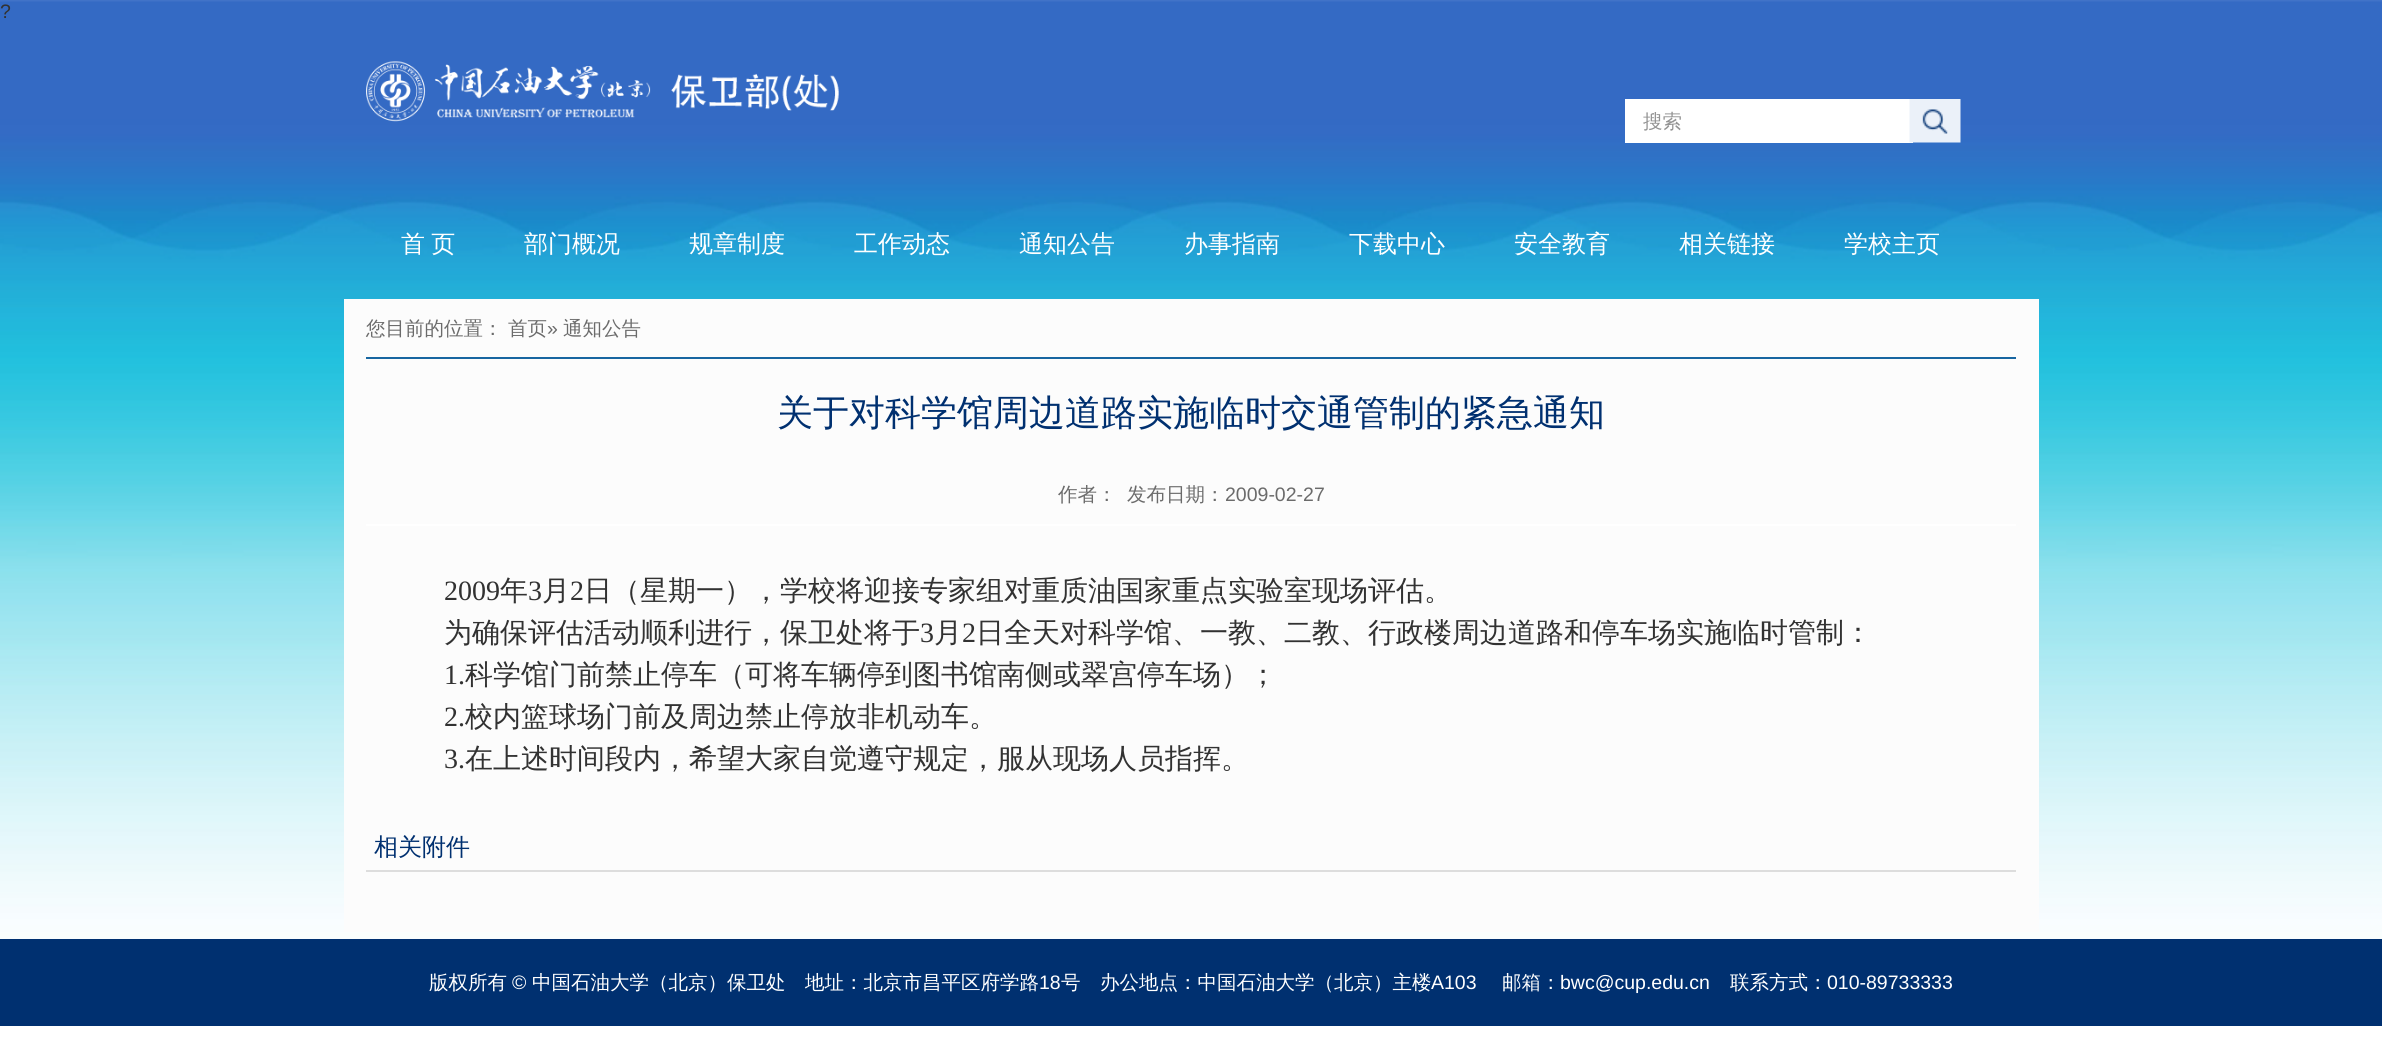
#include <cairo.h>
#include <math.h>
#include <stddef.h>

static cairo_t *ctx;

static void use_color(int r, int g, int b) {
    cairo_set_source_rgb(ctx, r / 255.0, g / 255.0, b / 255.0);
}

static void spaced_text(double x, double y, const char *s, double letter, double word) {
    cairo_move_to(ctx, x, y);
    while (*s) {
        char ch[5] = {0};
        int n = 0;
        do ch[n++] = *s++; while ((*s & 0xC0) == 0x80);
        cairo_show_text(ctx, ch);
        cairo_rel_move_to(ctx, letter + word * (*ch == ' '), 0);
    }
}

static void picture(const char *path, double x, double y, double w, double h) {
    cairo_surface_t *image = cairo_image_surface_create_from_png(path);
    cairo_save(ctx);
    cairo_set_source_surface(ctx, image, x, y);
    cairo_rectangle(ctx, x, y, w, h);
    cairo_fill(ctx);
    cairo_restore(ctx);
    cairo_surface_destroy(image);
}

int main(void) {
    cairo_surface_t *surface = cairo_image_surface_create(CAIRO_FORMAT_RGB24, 2382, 1045);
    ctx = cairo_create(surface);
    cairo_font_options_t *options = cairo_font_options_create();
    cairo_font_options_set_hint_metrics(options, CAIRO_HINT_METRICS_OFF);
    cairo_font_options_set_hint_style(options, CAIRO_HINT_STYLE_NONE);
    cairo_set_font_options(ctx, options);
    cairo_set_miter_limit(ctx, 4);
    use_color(255, 255, 255);
    cairo_paint(ctx);
    picture("img1.png", 0, 0, 2382, 939);
    cairo_select_font_face(ctx, "Liberation Sans", CAIRO_FONT_SLANT_NORMAL, CAIRO_FONT_WEIGHT_NORMAL);
    cairo_set_font_size(ctx, 19.5);
    use_color(50, 50, 50);
    cairo_move_to(ctx, 0, 18);
    cairo_show_text(ctx, "?");
    picture("img2.png", 366, 61, 473, 61);
    use_color(255, 255, 255);
    cairo_rectangle(ctx, 1625, 99, 288, 44);
    cairo_fill(ctx);
    cairo_select_font_face(ctx, "WenQuanYi Zen Hei Medium", CAIRO_FONT_SLANT_NORMAL, CAIRO_FONT_WEIGHT_NORMAL);
    use_color(147, 147, 147);
    cairo_move_to(ctx, 1643, 128);
    cairo_show_text(ctx, "搜索");
    picture("img3.png", 1909, 99, 52, 44);
    cairo_set_font_size(ctx, 24);
    use_color(255, 255, 255);
    spaced_text(401, 252, "首 页", 0, -1);
    cairo_move_to(ctx, 524, 252);
    cairo_show_text(ctx, "部门概况");
    cairo_move_to(ctx, 689, 252);
    cairo_show_text(ctx, "规章制度");
    cairo_move_to(ctx, 854, 252);
    cairo_show_text(ctx, "工作动态");
    cairo_move_to(ctx, 1019, 252);
    cairo_show_text(ctx, "通知公告");
    cairo_move_to(ctx, 1184, 252);
    cairo_show_text(ctx, "办事指南");
    cairo_move_to(ctx, 1349, 252);
    cairo_show_text(ctx, "下载中心");
    cairo_move_to(ctx, 1514, 252);
    cairo_show_text(ctx, "安全教育");
    cairo_move_to(ctx, 1679, 252);
    cairo_show_text(ctx, "相关链接");
    cairo_move_to(ctx, 1844, 252);
    cairo_show_text(ctx, "学校主页");
    use_color(252, 252, 252);
    cairo_rectangle(ctx, 344, 299, 1695, 633);
    cairo_fill(ctx);
    use_color(23, 102, 161);
    cairo_rectangle(ctx, 366, 357, 1650, 2);
    cairo_fill(ctx);
    cairo_set_font_size(ctx, 19.5);
    use_color(107, 107, 107);
    cairo_move_to(ctx, 366, 335);
    cairo_show_text(ctx, "您目前的位置：");
    cairo_move_to(ctx, 508, 335);
    cairo_show_text(ctx, "首页");
    cairo_select_font_face(ctx, "Liberation Sans", CAIRO_FONT_SLANT_NORMAL, CAIRO_FONT_WEIGHT_NORMAL);
    cairo_move_to(ctx, 547, 335);
    cairo_show_text(ctx, "»");
    cairo_select_font_face(ctx, "WenQuanYi Zen Hei Medium", CAIRO_FONT_SLANT_NORMAL, CAIRO_FONT_WEIGHT_NORMAL);
    cairo_move_to(ctx, 563, 335);
    cairo_show_text(ctx, "通知公告");
    cairo_set_font_size(ctx, 36);
    use_color(0, 48, 112);
    cairo_move_to(ctx, 777, 425);
    cairo_show_text(ctx, "关于对科学馆周边道路实施临时交通管制的紧急通知");
    use_color(255, 255, 255);
    cairo_rectangle(ctx, 366, 524, 1650, 2);
    cairo_fill(ctx);
    cairo_set_font_size(ctx, 19.5);
    use_color(107, 107, 107);
    cairo_move_to(ctx, 1058, 501);
    cairo_show_text(ctx, "作者：");
    cairo_move_to(ctx, 1127, 501);
    cairo_show_text(ctx, "发布日期：");
    cairo_select_font_face(ctx, "Liberation Sans", CAIRO_FONT_SLANT_NORMAL, CAIRO_FONT_WEIGHT_NORMAL);
    cairo_move_to(ctx, 1225, 501);
    cairo_show_text(ctx, "2009-02-27");
    cairo_select_font_face(ctx, "Liberation Serif", CAIRO_FONT_SLANT_NORMAL, CAIRO_FONT_WEIGHT_NORMAL);
    cairo_set_font_size(ctx, 28);
    use_color(50, 50, 50);
    cairo_move_to(ctx, 444, 600);
    cairo_show_text(ctx, "2009");
    cairo_select_font_face(ctx, "WenQuanYi Zen Hei Medium", CAIRO_FONT_SLANT_NORMAL, CAIRO_FONT_WEIGHT_NORMAL);
    cairo_move_to(ctx, 500, 600);
    cairo_show_text(ctx, "年");
    cairo_select_font_face(ctx, "Liberation Serif", CAIRO_FONT_SLANT_NORMAL, CAIRO_FONT_WEIGHT_NORMAL);
    cairo_move_to(ctx, 528, 600);
    cairo_show_text(ctx, "3");
    cairo_select_font_face(ctx, "WenQuanYi Zen Hei Medium", CAIRO_FONT_SLANT_NORMAL, CAIRO_FONT_WEIGHT_NORMAL);
    cairo_move_to(ctx, 542, 600);
    cairo_show_text(ctx, "月");
    cairo_select_font_face(ctx, "Liberation Serif", CAIRO_FONT_SLANT_NORMAL, CAIRO_FONT_WEIGHT_NORMAL);
    cairo_move_to(ctx, 570, 600);
    cairo_show_text(ctx, "2");
    cairo_select_font_face(ctx, "WenQuanYi Zen Hei Medium", CAIRO_FONT_SLANT_NORMAL, CAIRO_FONT_WEIGHT_NORMAL);
    cairo_move_to(ctx, 584, 600);
    cairo_show_text(ctx, "日（星期一），学校将迎接专家组对重质油国家重点实验室现场评估。");
    cairo_move_to(ctx, 444, 642);
    cairo_show_text(ctx, "为确保评估活动顺利进行，保卫处将于");
    cairo_select_font_face(ctx, "Liberation Serif", CAIRO_FONT_SLANT_NORMAL, CAIRO_FONT_WEIGHT_NORMAL);
    cairo_move_to(ctx, 920, 642);
    cairo_show_text(ctx, "3");
    cairo_select_font_face(ctx, "WenQuanYi Zen Hei Medium", CAIRO_FONT_SLANT_NORMAL, CAIRO_FONT_WEIGHT_NORMAL);
    cairo_move_to(ctx, 934, 642);
    cairo_show_text(ctx, "月");
    cairo_select_font_face(ctx, "Liberation Serif", CAIRO_FONT_SLANT_NORMAL, CAIRO_FONT_WEIGHT_NORMAL);
    cairo_move_to(ctx, 962, 642);
    cairo_show_text(ctx, "2");
    cairo_select_font_face(ctx, "WenQuanYi Zen Hei Medium", CAIRO_FONT_SLANT_NORMAL, CAIRO_FONT_WEIGHT_NORMAL);
    cairo_move_to(ctx, 976, 642);
    cairo_show_text(ctx, "日全天对科学馆、一教、二教、行政楼周边道路和停车场实施临时管制：");
    cairo_select_font_face(ctx, "Liberation Serif", CAIRO_FONT_SLANT_NORMAL, CAIRO_FONT_WEIGHT_NORMAL);
    cairo_move_to(ctx, 444, 684);
    cairo_show_text(ctx, "1.");
    cairo_select_font_face(ctx, "WenQuanYi Zen Hei Medium", CAIRO_FONT_SLANT_NORMAL, CAIRO_FONT_WEIGHT_NORMAL);
    cairo_move_to(ctx, 465, 684);
    cairo_show_text(ctx, "科学馆门前禁止停车（可将车辆停到图书馆南侧或翠宫停车场）；");
    cairo_select_font_face(ctx, "Liberation Serif", CAIRO_FONT_SLANT_NORMAL, CAIRO_FONT_WEIGHT_NORMAL);
    cairo_move_to(ctx, 444, 726);
    cairo_show_text(ctx, "2.");
    cairo_select_font_face(ctx, "WenQuanYi Zen Hei Medium", CAIRO_FONT_SLANT_NORMAL, CAIRO_FONT_WEIGHT_NORMAL);
    cairo_move_to(ctx, 465, 726);
    cairo_show_text(ctx, "校内篮球场门前及周边禁止停放非机动车。");
    cairo_select_font_face(ctx, "Liberation Serif", CAIRO_FONT_SLANT_NORMAL, CAIRO_FONT_WEIGHT_NORMAL);
    cairo_move_to(ctx, 444, 768);
    cairo_show_text(ctx, "3.");
    cairo_select_font_face(ctx, "WenQuanYi Zen Hei Medium", CAIRO_FONT_SLANT_NORMAL, CAIRO_FONT_WEIGHT_NORMAL);
    cairo_move_to(ctx, 465, 768);
    cairo_show_text(ctx, "在上述时间段内，希望大家自觉遵守规定，服从现场人员指挥。");
    use_color(221, 221, 221);
    cairo_rectangle(ctx, 366, 870, 1650, 2);
    cairo_fill(ctx);
    cairo_set_font_size(ctx, 24);
    use_color(0, 48, 112);
    cairo_move_to(ctx, 374, 855);
    cairo_show_text(ctx, "相关附件");
    cairo_rectangle(ctx, 0, 939, 2382, 87);
    cairo_fill(ctx);
    cairo_set_font_size(ctx, 19.5);
    use_color(255, 255, 255);
    cairo_move_to(ctx, 429, 989);
    cairo_show_text(ctx, "版权所有");
    cairo_select_font_face(ctx, "Liberation Sans", CAIRO_FONT_SLANT_NORMAL, CAIRO_FONT_WEIGHT_NORMAL);
    cairo_move_to(ctx, 512, 989);
    cairo_show_text(ctx, "©");
    cairo_select_font_face(ctx, "WenQuanYi Zen Hei Medium", CAIRO_FONT_SLANT_NORMAL, CAIRO_FONT_WEIGHT_NORMAL);
    cairo_move_to(ctx, 532, 989);
    cairo_show_text(ctx, "中国石油大学（北京）保卫处　地址：北京市昌平区府学路");
    cairo_select_font_face(ctx, "Liberation Sans", CAIRO_FONT_SLANT_NORMAL, CAIRO_FONT_WEIGHT_NORMAL);
    cairo_move_to(ctx, 1039, 989);
    cairo_show_text(ctx, "18");
    cairo_select_font_face(ctx, "WenQuanYi Zen Hei Medium", CAIRO_FONT_SLANT_NORMAL, CAIRO_FONT_WEIGHT_NORMAL);
    cairo_move_to(ctx, 1061, 989);
    cairo_show_text(ctx, "号　办公地点：中国石油大学（北京）主楼");
    cairo_select_font_face(ctx, "Liberation Sans", CAIRO_FONT_SLANT_NORMAL, CAIRO_FONT_WEIGHT_NORMAL);
    cairo_move_to(ctx, 1431, 989);
    cairo_show_text(ctx, "A103");
    cairo_select_font_face(ctx, "WenQuanYi Zen Hei Medium", CAIRO_FONT_SLANT_NORMAL, CAIRO_FONT_WEIGHT_NORMAL);
    cairo_move_to(ctx, 1502, 989);
    cairo_show_text(ctx, "邮箱：");
    cairo_select_font_face(ctx, "Liberation Sans", CAIRO_FONT_SLANT_NORMAL, CAIRO_FONT_WEIGHT_NORMAL);
    cairo_move_to(ctx, 1560, 989);
    cairo_show_text(ctx, "bwc@cup.edu.cn");
    cairo_select_font_face(ctx, "WenQuanYi Zen Hei Medium", CAIRO_FONT_SLANT_NORMAL, CAIRO_FONT_WEIGHT_NORMAL);
    cairo_move_to(ctx, 1730, 989);
    cairo_show_text(ctx, "联系方式：");
    cairo_select_font_face(ctx, "Liberation Sans", CAIRO_FONT_SLANT_NORMAL, CAIRO_FONT_WEIGHT_NORMAL);
    cairo_move_to(ctx, 1827, 989);
    cairo_show_text(ctx, "010-89733333");
    cairo_surface_write_to_png(surface, "result.png");
    cairo_font_options_destroy(options);
    cairo_destroy(ctx);
    cairo_surface_destroy(surface);
    return 0;
}
